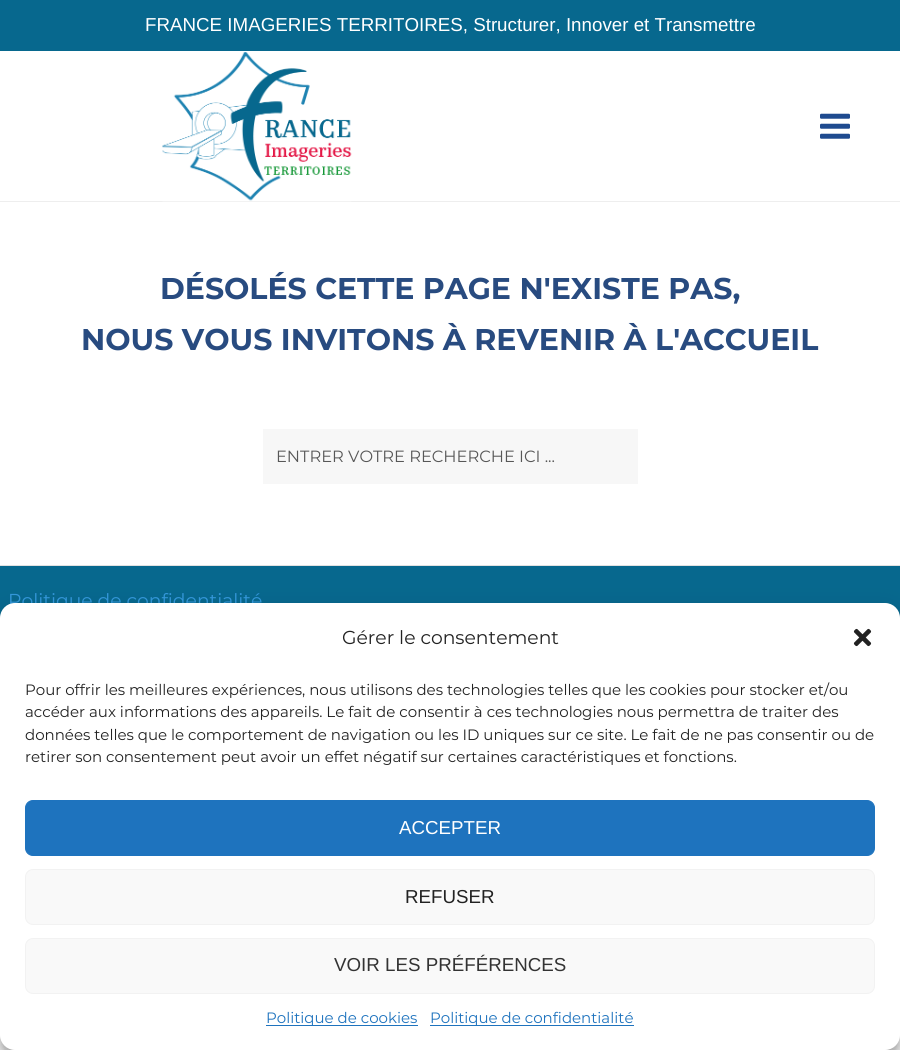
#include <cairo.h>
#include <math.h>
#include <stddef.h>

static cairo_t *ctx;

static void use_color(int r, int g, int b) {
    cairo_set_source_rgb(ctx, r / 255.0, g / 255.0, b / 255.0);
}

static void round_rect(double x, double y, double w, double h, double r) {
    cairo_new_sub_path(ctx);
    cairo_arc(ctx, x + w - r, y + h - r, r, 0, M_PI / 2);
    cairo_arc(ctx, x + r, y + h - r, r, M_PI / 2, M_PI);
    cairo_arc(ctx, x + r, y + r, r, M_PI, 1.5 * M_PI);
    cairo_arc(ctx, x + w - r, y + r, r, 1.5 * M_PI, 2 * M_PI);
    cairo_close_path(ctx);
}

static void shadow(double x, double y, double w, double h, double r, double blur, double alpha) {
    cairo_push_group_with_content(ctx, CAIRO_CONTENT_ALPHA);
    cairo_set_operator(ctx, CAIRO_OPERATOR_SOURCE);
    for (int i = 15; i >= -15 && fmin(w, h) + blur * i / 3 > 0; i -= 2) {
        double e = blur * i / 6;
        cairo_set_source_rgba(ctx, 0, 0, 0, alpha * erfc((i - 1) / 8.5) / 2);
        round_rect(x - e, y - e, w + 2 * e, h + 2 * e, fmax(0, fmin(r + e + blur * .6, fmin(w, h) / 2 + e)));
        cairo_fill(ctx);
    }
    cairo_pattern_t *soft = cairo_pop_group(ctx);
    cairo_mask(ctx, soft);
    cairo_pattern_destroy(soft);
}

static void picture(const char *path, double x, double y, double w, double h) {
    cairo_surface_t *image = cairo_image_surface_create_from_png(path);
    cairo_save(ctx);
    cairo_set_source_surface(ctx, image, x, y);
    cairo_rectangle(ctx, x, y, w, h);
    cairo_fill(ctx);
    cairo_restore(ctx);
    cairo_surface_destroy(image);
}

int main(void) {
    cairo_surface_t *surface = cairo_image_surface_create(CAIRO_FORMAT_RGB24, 900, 1050);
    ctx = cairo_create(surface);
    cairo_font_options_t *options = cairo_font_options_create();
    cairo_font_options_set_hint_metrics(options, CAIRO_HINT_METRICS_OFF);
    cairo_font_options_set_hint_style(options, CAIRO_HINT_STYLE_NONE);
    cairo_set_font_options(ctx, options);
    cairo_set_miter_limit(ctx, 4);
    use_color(255, 255, 255);
    cairo_paint(ctx);
    use_color(7, 104, 142);
    cairo_rectangle(ctx, 0, 0, 900, 51);
    cairo_fill(ctx);
    cairo_select_font_face(ctx, "Liberation Sans", CAIRO_FONT_SLANT_NORMAL, CAIRO_FONT_WEIGHT_NORMAL);
    cairo_set_font_size(ctx, 18.75);
    use_color(255, 255, 255);
    cairo_move_to(ctx, 145, 31);
    cairo_show_text(ctx, "FRANCE IMAGERIES TERRITOIRES, Structurer, Innover et Transmettre");
    use_color(238, 238, 238);
    cairo_rectangle(ctx, 0, 201, 900, 1);
    cairo_fill(ctx);
    picture("img1.png", 162, 52, 190, 150);
    picture("img2.png", 820, 113, 30, 26);
    cairo_select_font_face(ctx, "Montserrat", CAIRO_FONT_SLANT_NORMAL, CAIRO_FONT_WEIGHT_BOLD);
    cairo_set_font_size(ctx, 30);
    use_color(40, 75, 128);
    cairo_move_to(ctx, 160, 299);
    cairo_show_text(ctx, "DÉSOLÉS CETTE PAGE N'EXISTE PAS,");
    cairo_move_to(ctx, 81, 350);
    cairo_show_text(ctx, "NOUS VOUS INVITONS À REVENIR À L'ACCUEIL");
    use_color(247, 247, 247);
    cairo_rectangle(ctx, 263, 429, 375, 55);
    cairo_fill(ctx);
    cairo_select_font_face(ctx, "Montserrat", CAIRO_FONT_SLANT_NORMAL, CAIRO_FONT_WEIGHT_NORMAL);
    cairo_set_font_size(ctx, 16.25);
    use_color(87, 87, 87);
    cairo_move_to(ctx, 276, 462);
    cairo_show_text(ctx, "ENTRER VOTRE RECHERCHE ICI ...");
    use_color(7, 104, 142);
    cairo_rectangle(ctx, 0, 566, 900, 52);
    cairo_fill(ctx);
    use_color(225, 225, 225);
    cairo_rectangle(ctx, 0, 565, 900, 1);
    cairo_fill(ctx);
    cairo_set_font_size(ctx, 18.75);
    use_color(52, 152, 219);
    cairo_move_to(ctx, 8, 607);
    cairo_show_text(ctx, "Politique de confidentialité");
    use_color(0, 0, 0);
    shadow(0, 610, 900, 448, 15, 4, 0.23);
    shadow(0, 615, 900, 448, 15, 12.5, 0.19);
    use_color(255, 255, 255);
    round_rect(0, 603, 900, 447, 15);
    cairo_fill(ctx);
    use_color(34, 34, 34);
    cairo_move_to(ctx, 342, 644);
    cairo_show_text(ctx, "Gérer le consentement");
    picture("img3.png", 853, 628, 19, 19);
    cairo_set_font_size(ctx, 15);
    cairo_move_to(ctx, 25, 695);
    cairo_show_text(ctx, "Pour offrir les meilleures expériences, nous utilisons des technologies telles que les cookies pour stocker et/ou");
    cairo_move_to(ctx, 25, 717);
    cairo_show_text(ctx, "accéder aux informations des appareils. Le fait de consentir à ces technologies nous permettra de traiter des");
    cairo_move_to(ctx, 25, 740);
    cairo_show_text(ctx, "données telles que le comportement de navigation ou les ID uniques sur ce site. Le fait de ne pas consentir ou de");
    cairo_move_to(ctx, 25, 762);
    cairo_show_text(ctx, "retirer son consentement peut avoir un effet négatif sur certaines caractéristiques et fonctions.");
    use_color(30, 115, 190);
    round_rect(25.5, 800.5, 849, 55, 7.5);
    cairo_fill_preserve(ctx);
    cairo_set_line_width(ctx, 1);
    cairo_stroke(ctx);
    cairo_select_font_face(ctx, "Liberation Sans", CAIRO_FONT_SLANT_NORMAL, CAIRO_FONT_WEIGHT_NORMAL);
    cairo_set_font_size(ctx, 18.75);
    use_color(255, 255, 255);
    cairo_move_to(ctx, 399, 834);
    cairo_show_text(ctx, "ACCEPTER");
    use_color(249, 249, 249);
    round_rect(25.5, 869.5, 849, 55, 7.5);
    cairo_fill_preserve(ctx);
    use_color(242, 242, 242);
    cairo_stroke(ctx);
    use_color(34, 34, 34);
    cairo_move_to(ctx, 405, 903);
    cairo_show_text(ctx, "REFUSER");
    use_color(249, 249, 249);
    round_rect(25.5, 938.5, 849, 55, 7.5);
    cairo_fill_preserve(ctx);
    use_color(242, 242, 242);
    cairo_stroke(ctx);
    use_color(51, 51, 51);
    cairo_move_to(ctx, 334, 971);
    cairo_show_text(ctx, "VOIR LES PRÉFÉRENCES");
    use_color(30, 115, 190);
    cairo_rectangle(ctx, 266, 1025, 152, 1);
    cairo_fill(ctx);
    cairo_select_font_face(ctx, "Montserrat", CAIRO_FONT_SLANT_NORMAL, CAIRO_FONT_WEIGHT_NORMAL);
    cairo_set_font_size(ctx, 15);
    cairo_move_to(ctx, 266, 1023);
    cairo_show_text(ctx, "Politique de cookies");
    cairo_rectangle(ctx, 430, 1025, 204, 1);
    cairo_fill(ctx);
    cairo_move_to(ctx, 430, 1023);
    cairo_show_text(ctx, "Politique de confidentialité");
    cairo_surface_write_to_png(surface, "result.png");
    cairo_font_options_destroy(options);
    cairo_destroy(ctx);
    cairo_surface_destroy(surface);
    return 0;
}
